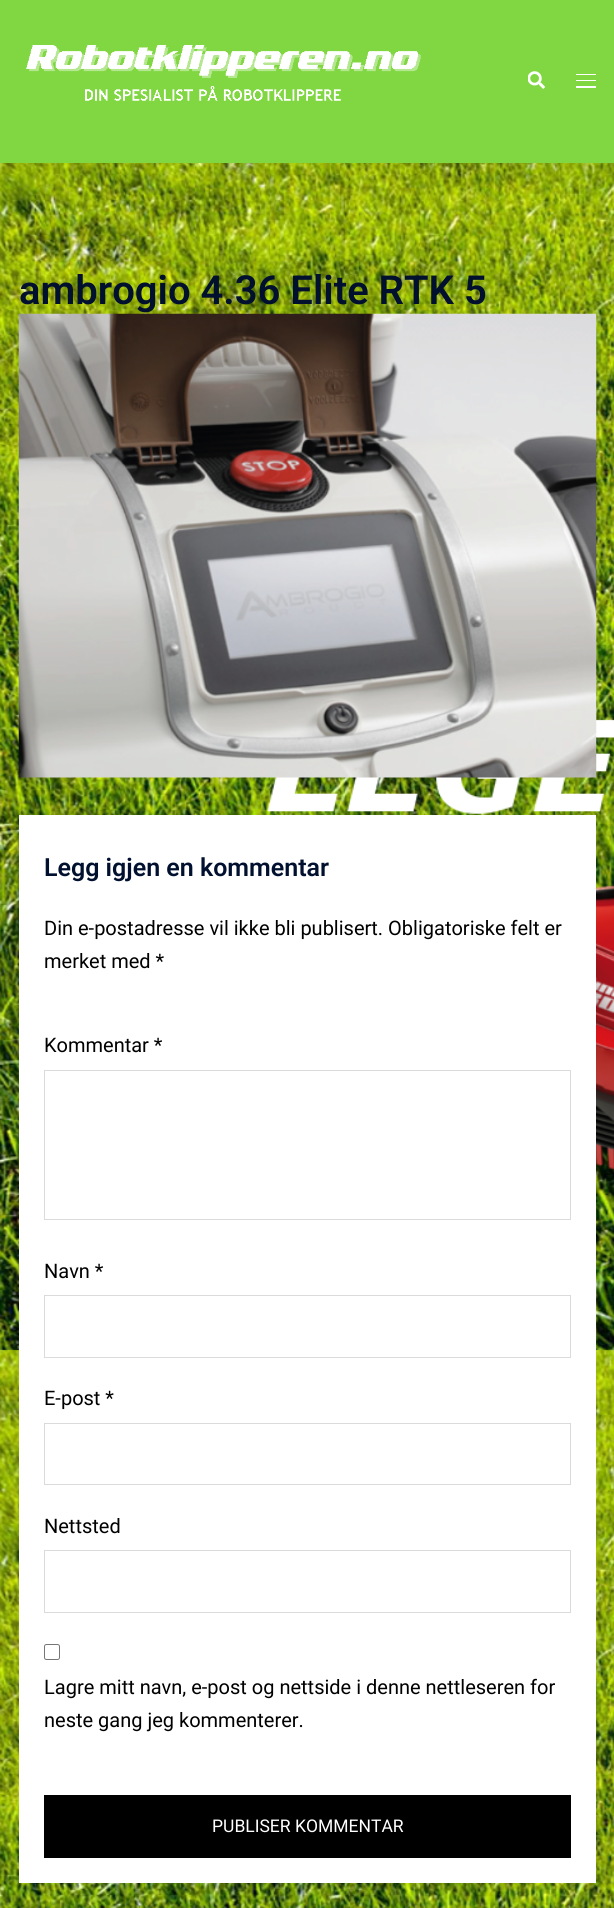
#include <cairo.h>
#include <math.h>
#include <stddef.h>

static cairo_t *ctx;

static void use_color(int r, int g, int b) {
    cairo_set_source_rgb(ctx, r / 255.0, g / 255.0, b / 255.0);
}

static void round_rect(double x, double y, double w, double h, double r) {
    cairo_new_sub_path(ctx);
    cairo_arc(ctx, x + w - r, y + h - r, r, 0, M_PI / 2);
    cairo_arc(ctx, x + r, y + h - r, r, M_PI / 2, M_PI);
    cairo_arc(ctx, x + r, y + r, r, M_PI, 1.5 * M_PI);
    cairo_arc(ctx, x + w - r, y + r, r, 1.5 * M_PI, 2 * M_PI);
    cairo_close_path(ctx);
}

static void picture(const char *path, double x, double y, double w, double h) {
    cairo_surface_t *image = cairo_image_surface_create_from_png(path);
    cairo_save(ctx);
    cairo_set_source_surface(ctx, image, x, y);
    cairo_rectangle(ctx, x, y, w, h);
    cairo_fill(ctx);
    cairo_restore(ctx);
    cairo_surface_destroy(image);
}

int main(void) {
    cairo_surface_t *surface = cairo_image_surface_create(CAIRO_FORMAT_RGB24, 614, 1908);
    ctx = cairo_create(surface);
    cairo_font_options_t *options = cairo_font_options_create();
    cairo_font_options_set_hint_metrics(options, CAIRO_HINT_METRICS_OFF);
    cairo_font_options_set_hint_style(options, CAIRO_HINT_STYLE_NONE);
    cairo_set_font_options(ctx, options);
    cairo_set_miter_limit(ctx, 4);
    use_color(255, 255, 255);
    cairo_paint(ctx);
    picture("img1.png", 0, 163, 614, 1745);
    use_color(129, 215, 66);
    cairo_rectangle(ctx, 0, 0, 614, 163);
    cairo_fill(ctx);
    picture("img2.png", 26, 45, 395, 56);
    picture("img3.png", 528, 71, 17, 18);
    use_color(255, 255, 255);
    cairo_rectangle(ctx, 576, 74, 20, 1);
    cairo_fill(ctx);
    cairo_rectangle(ctx, 576, 80, 20, 1);
    cairo_fill(ctx);
    cairo_rectangle(ctx, 576, 86, 20, 2);
    cairo_fill(ctx);
    cairo_select_font_face(ctx, "Roboto SemiBold", CAIRO_FONT_SLANT_NORMAL, CAIRO_FONT_WEIGHT_NORMAL);
    cairo_set_font_size(ctx, 40);
    use_color(0, 16, 46);
    cairo_move_to(ctx, 19, 304);
    cairo_show_text(ctx, "ambrogio 4.36 Elite RTK 5");
    picture("img4.png", 18, 313, 579, 465);
    use_color(255, 255, 255);
    cairo_rectangle(ctx, 19, 815, 577, 1068);
    cairo_fill(ctx);
    cairo_set_font_size(ctx, 25);
    use_color(0, 16, 46);
    cairo_move_to(ctx, 44, 876);
    cairo_show_text(ctx, "Legg igjen en kommentar");
    cairo_select_font_face(ctx, "Roboto", CAIRO_FONT_SLANT_NORMAL, CAIRO_FONT_WEIGHT_NORMAL);
    cairo_set_font_size(ctx, 20);
    use_color(0, 0, 0);
    cairo_move_to(ctx, 44, 935);
    cairo_show_text(ctx, "Din e-postadresse vil ikke bli publisert. Obligatoriske felt er");
    cairo_move_to(ctx, 44, 968);
    cairo_show_text(ctx, "merket med *");
    cairo_move_to(ctx, 44, 1052);
    cairo_show_text(ctx, "Kommentar *");
    cairo_rectangle(ctx, 44.5, 1070.5, 526, 149);
    use_color(219, 219, 219);
    cairo_set_line_width(ctx, 1);
    cairo_stroke(ctx);
    use_color(0, 0, 0);
    cairo_move_to(ctx, 44, 1278);
    cairo_show_text(ctx, "Navn *");
    cairo_rectangle(ctx, 44.5, 1295.5, 526, 62);
    use_color(219, 219, 219);
    cairo_stroke(ctx);
    use_color(0, 0, 0);
    cairo_move_to(ctx, 44, 1405);
    cairo_show_text(ctx, "E-post *");
    cairo_rectangle(ctx, 44.5, 1423.5, 526, 61);
    use_color(219, 219, 219);
    cairo_stroke(ctx);
    use_color(0, 0, 0);
    cairo_move_to(ctx, 44, 1533);
    cairo_show_text(ctx, "Nettsted");
    cairo_rectangle(ctx, 44.5, 1550.5, 526, 62);
    use_color(219, 219, 219);
    cairo_stroke(ctx);
    round_rect(44.5, 1644.5, 15, 15, 2);
    use_color(118, 118, 118);
    cairo_stroke(ctx);
    use_color(0, 0, 0);
    cairo_move_to(ctx, 44, 1694);
    cairo_show_text(ctx, "Lagre mitt navn, e-post og nettside i denne nettleseren for");
    cairo_move_to(ctx, 44, 1727);
    cairo_show_text(ctx, "neste gang jeg kommenterer.");
    cairo_rectangle(ctx, 44, 1795, 527, 63);
    cairo_fill(ctx);
    cairo_set_font_size(ctx, 17.5);
    use_color(255, 255, 255);
    cairo_move_to(ctx, 212, 1832);
    cairo_show_text(ctx, "PUBLISER KOMMENTAR");
    cairo_surface_write_to_png(surface, "result.png");
    cairo_font_options_destroy(options);
    cairo_destroy(ctx);
    cairo_surface_destroy(surface);
    return 0;
}
